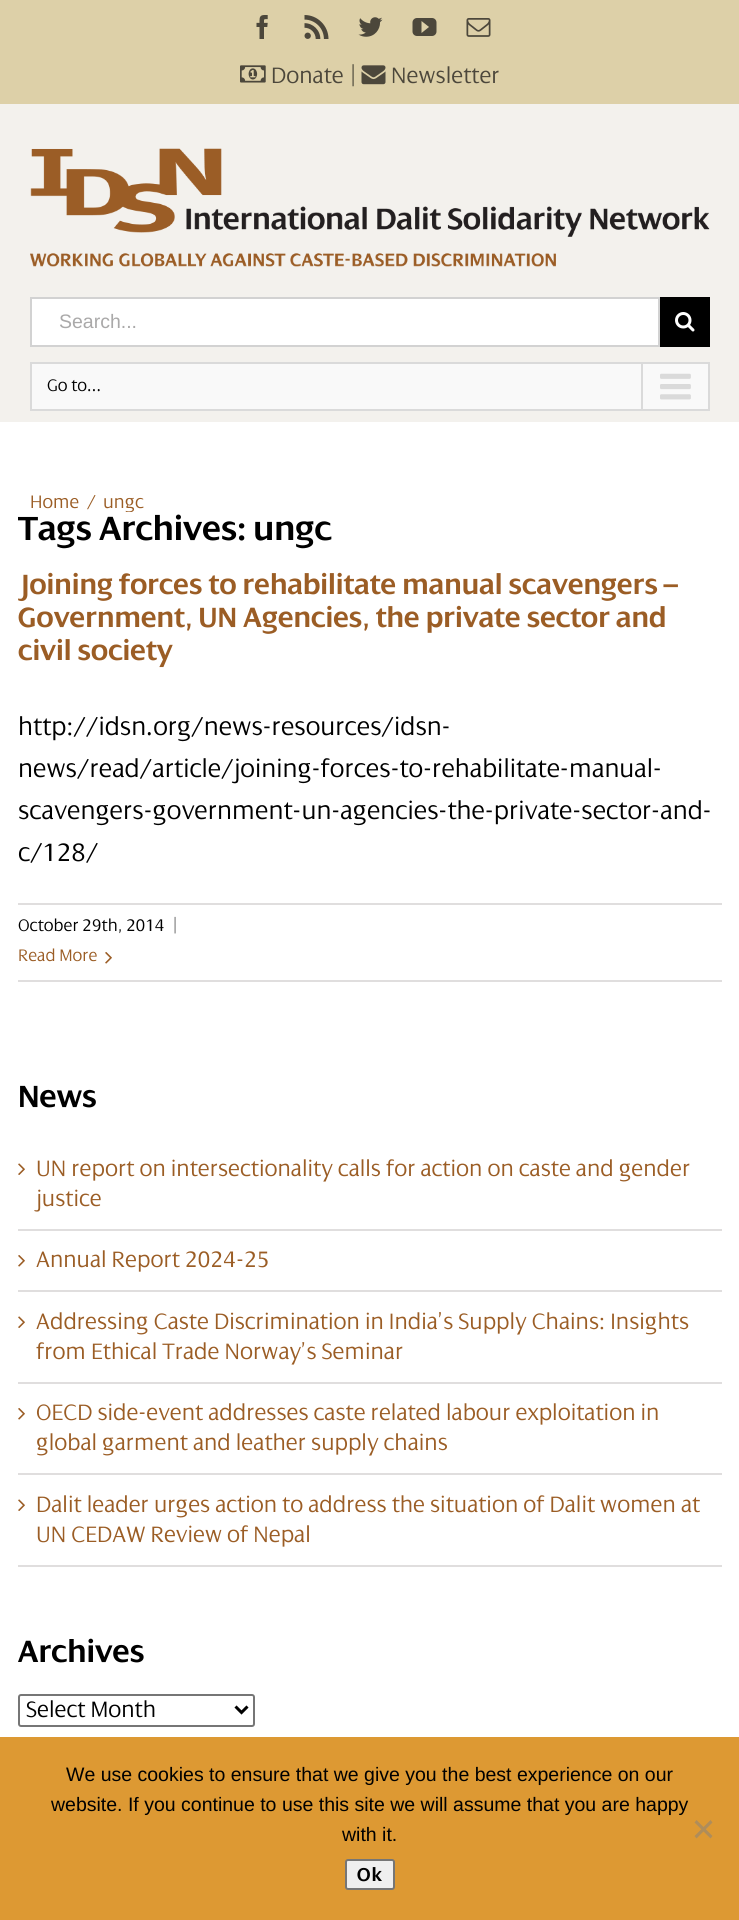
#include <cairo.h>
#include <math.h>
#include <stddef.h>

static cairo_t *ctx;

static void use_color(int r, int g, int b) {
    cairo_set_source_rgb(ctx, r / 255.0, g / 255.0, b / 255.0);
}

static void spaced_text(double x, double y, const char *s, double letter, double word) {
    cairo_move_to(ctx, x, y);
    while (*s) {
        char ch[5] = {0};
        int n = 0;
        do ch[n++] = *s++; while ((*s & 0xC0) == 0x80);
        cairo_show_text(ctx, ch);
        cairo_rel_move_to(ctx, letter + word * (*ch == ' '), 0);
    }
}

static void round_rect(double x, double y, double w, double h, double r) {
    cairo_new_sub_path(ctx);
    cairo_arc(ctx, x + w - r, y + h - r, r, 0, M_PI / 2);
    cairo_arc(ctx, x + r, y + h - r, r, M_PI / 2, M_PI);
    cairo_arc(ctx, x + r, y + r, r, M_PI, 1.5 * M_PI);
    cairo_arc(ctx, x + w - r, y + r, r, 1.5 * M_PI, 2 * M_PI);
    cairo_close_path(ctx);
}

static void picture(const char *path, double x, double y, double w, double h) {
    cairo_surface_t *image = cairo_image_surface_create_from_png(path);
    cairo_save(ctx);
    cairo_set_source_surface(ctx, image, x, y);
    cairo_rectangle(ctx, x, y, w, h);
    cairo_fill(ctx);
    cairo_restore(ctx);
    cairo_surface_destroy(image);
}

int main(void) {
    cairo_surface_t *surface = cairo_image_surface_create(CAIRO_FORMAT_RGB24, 739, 1920);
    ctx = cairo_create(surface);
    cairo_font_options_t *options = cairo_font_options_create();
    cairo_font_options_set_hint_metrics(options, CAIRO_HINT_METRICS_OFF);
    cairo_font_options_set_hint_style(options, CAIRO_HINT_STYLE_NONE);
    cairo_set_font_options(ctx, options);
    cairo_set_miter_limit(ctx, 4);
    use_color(255, 255, 255);
    cairo_paint(ctx);
    use_color(221, 208, 168);
    cairo_rectangle(ctx, 0, 0, 739, 104);
    cairo_fill(ctx);
    picture("img1.png", 256, 15, 12, 24);
    picture("img2.png", 304, 15, 25, 24);
    picture("img3.png", 358, 17, 25, 20);
    picture("img4.png", 412, 18, 25, 18);
    picture("img5.png", 466, 18, 25, 19);
    picture("img6.png", 240, 65, 26, 18);
    cairo_select_font_face(ctx, "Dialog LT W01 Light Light", CAIRO_FONT_SLANT_NORMAL, CAIRO_FONT_WEIGHT_NORMAL);
    cairo_set_font_size(ctx, 24);
    use_color(76, 71, 59);
    cairo_move_to(ctx, 271, 83);
    cairo_show_text(ctx, "Donate");
    use_color(0, 0, 0);
    cairo_move_to(ctx, 349, 83);
    cairo_show_text(ctx, "|");
    picture("img7.png", 361, 65, 25, 20);
    use_color(76, 71, 59);
    cairo_move_to(ctx, 391, 83);
    cairo_show_text(ctx, "Newsletter");
    use_color(243, 241, 237);
    cairo_rectangle(ctx, 0, 104, 739, 318);
    cairo_fill(ctx);
    picture("img8.png", 30, 148, 680, 119);
    use_color(255, 255, 255);
    cairo_rectangle(ctx, 31, 298, 628, 48);
    cairo_fill_preserve(ctx);
    use_color(210, 210, 210);
    cairo_stroke(ctx);
    cairo_select_font_face(ctx, "Liberation Sans", CAIRO_FONT_SLANT_NORMAL, CAIRO_FONT_WEIGHT_NORMAL);
    cairo_set_font_size(ctx, 19.5);
    use_color(170, 169, 169);
    cairo_move_to(ctx, 59, 328);
    cairo_show_text(ctx, "Search...");
    use_color(0, 0, 0);
    cairo_rectangle(ctx, 660, 297, 50, 50);
    cairo_fill(ctx);
    picture("img9.png", 675, 312, 20, 20);
    use_color(249, 249, 249);
    cairo_rectangle(ctx, 31, 363, 678, 47);
    cairo_fill_preserve(ctx);
    use_color(218, 218, 218);
    cairo_stroke(ctx);
    cairo_select_font_face(ctx, "Dialog LT W01 Light Light", CAIRO_FONT_SLANT_NORMAL, CAIRO_FONT_WEIGHT_NORMAL);
    cairo_set_font_size(ctx, 18);
    use_color(0, 0, 0);
    cairo_move_to(ctx, 47, 391);
    cairo_show_text(ctx, "Go to...");
    use_color(218, 218, 218);
    cairo_rectangle(ctx, 641, 363, 2, 47);
    cairo_fill(ctx);
    picture("img10.png", 660, 373, 31, 27);
    cairo_set_font_size(ctx, 19.5);
    use_color(155, 93, 37);
    cairo_move_to(ctx, 30, 508);
    cairo_show_text(ctx, "Home");
    cairo_move_to(ctx, 87, 508);
    cairo_show_text(ctx, "/");
    cairo_save(ctx);
    cairo_rectangle(ctx, 0, 491, 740, 21);
    cairo_clip(ctx);
    cairo_move_to(ctx, 103, 508);
    cairo_show_text(ctx, "ungc");
    cairo_restore(ctx);
    cairo_select_font_face(ctx, "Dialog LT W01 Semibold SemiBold", CAIRO_FONT_SLANT_NORMAL, CAIRO_FONT_WEIGHT_NORMAL);
    cairo_set_font_size(ctx, 36);
    use_color(0, 0, 0);
    cairo_move_to(ctx, 18, 540);
    cairo_show_text(ctx, "Tags Archives: ungc");
    cairo_set_font_size(ctx, 30);
    use_color(155, 93, 37);
    cairo_move_to(ctx, 18, 594);
    cairo_show_text(ctx, "Joining forces to rehabilitate manual scavengers –");
    cairo_move_to(ctx, 18, 627);
    cairo_show_text(ctx, "Government, UN Agencies, the private sector and");
    cairo_move_to(ctx, 18, 660);
    cairo_show_text(ctx, "civil society");
    cairo_select_font_face(ctx, "Dialog LT W01 Light Light", CAIRO_FONT_SLANT_NORMAL, CAIRO_FONT_WEIGHT_NORMAL);
    cairo_set_font_size(ctx, 27);
    use_color(0, 0, 0);
    cairo_move_to(ctx, 18, 735);
    cairo_show_text(ctx, "http://idsn.org/news-resources/idsn-");
    cairo_move_to(ctx, 18, 777);
    cairo_show_text(ctx, "news/read/article/joining-forces-to-rehabilitate-manual-");
    cairo_move_to(ctx, 18, 819);
    cairo_show_text(ctx, "scavengers-government-un-agencies-the-private-sector-and-");
    cairo_move_to(ctx, 18, 861);
    cairo_show_text(ctx, "c/128/");
    use_color(224, 222, 222);
    cairo_rectangle(ctx, 18, 903, 704, 2);
    cairo_fill(ctx);
    cairo_rectangle(ctx, 18, 980, 704, 2);
    cairo_fill(ctx);
    cairo_set_font_size(ctx, 18);
    use_color(0, 0, 0);
    cairo_move_to(ctx, 18, 931);
    cairo_show_text(ctx, "October 29th, 2014");
    cairo_move_to(ctx, 172, 931);
    cairo_show_text(ctx, "|");
    use_color(155, 93, 37);
    cairo_move_to(ctx, 18, 961);
    cairo_show_text(ctx, "Read More");
    picture("img11.png", 105, 952, 7, 12);
    cairo_select_font_face(ctx, "Dialog LT W01 Semibold SemiBold", CAIRO_FONT_SLANT_NORMAL, CAIRO_FONT_WEIGHT_NORMAL);
    cairo_set_font_size(ctx, 33);
    use_color(0, 0, 0);
    cairo_move_to(ctx, 18, 1107);
    cairo_show_text(ctx, "News");
    use_color(224, 222, 222);
    cairo_rectangle(ctx, 18, 1229, 704, 2);
    cairo_fill(ctx);
    picture("img12.png", 18, 1163, 7, 12);
    cairo_select_font_face(ctx, "Dialog LT W01 Light Light", CAIRO_FONT_SLANT_NORMAL, CAIRO_FONT_WEIGHT_NORMAL);
    cairo_set_font_size(ctx, 24);
    use_color(155, 93, 37);
    cairo_move_to(ctx, 36, 1176);
    cairo_show_text(ctx, "UN report on intersectionality calls for action on caste and gender");
    cairo_move_to(ctx, 36, 1206);
    cairo_show_text(ctx, "justice");
    use_color(224, 222, 222);
    cairo_rectangle(ctx, 18, 1290, 704, 2);
    cairo_fill(ctx);
    picture("img11.png", 18, 1255, 7, 12);
    use_color(155, 93, 37);
    cairo_move_to(ctx, 36, 1267);
    cairo_show_text(ctx, "Annual Report 2024-25");
    use_color(224, 222, 222);
    cairo_rectangle(ctx, 18, 1382, 704, 2);
    cairo_fill(ctx);
    picture("img12.png", 18, 1316, 7, 12);
    use_color(155, 93, 37);
    cairo_move_to(ctx, 36, 1329);
    cairo_show_text(ctx, "Addressing Caste Discrimination in India’s Supply Chains: Insights");
    cairo_move_to(ctx, 36, 1359);
    cairo_show_text(ctx, "from Ethical Trade Norway’s Seminar");
    use_color(224, 222, 222);
    cairo_rectangle(ctx, 18, 1473, 704, 2);
    cairo_fill(ctx);
    picture("img11.png", 18, 1408, 7, 12);
    use_color(155, 93, 37);
    cairo_move_to(ctx, 36, 1420);
    cairo_show_text(ctx, "OECD side-event addresses caste related labour exploitation in");
    cairo_move_to(ctx, 36, 1450);
    cairo_show_text(ctx, "global garment and leather supply chains");
    use_color(224, 222, 222);
    cairo_rectangle(ctx, 18, 1565, 704, 2);
    cairo_fill(ctx);
    picture("img12.png", 18, 1499, 7, 12);
    use_color(155, 93, 37);
    cairo_move_to(ctx, 36, 1512);
    cairo_show_text(ctx, "Dalit leader urges action to address the situation of Dalit women at");
    cairo_move_to(ctx, 36, 1542);
    cairo_show_text(ctx, "UN CEDAW Review of Nepal");
    cairo_select_font_face(ctx, "Dialog LT W01 Semibold SemiBold", CAIRO_FONT_SLANT_NORMAL, CAIRO_FONT_WEIGHT_NORMAL);
    cairo_set_font_size(ctx, 33);
    use_color(0, 0, 0);
    cairo_move_to(ctx, 18, 1662);
    cairo_show_text(ctx, "Archives");
    round_rect(19, 1695, 235, 31, 2);
    use_color(118, 118, 118);
    cairo_stroke(ctx);
    cairo_new_path(ctx);
    cairo_move_to(ctx, 235.5, 1706.5);
    cairo_line_to(ctx, 241.5, 1712.5);
    cairo_line_to(ctx, 247.5, 1706.5);
    use_color(0, 0, 0);
    cairo_set_line_width(ctx, 3);
    cairo_stroke(ctx);
    cairo_select_font_face(ctx, "Dialog LT W01 Light Light", CAIRO_FONT_SLANT_NORMAL, CAIRO_FONT_WEIGHT_NORMAL);
    cairo_set_font_size(ctx, 24);
    cairo_move_to(ctx, 26, 1717);
    cairo_show_text(ctx, "Select Month");
    use_color(221, 153, 51);
    cairo_rectangle(ctx, 0, 1737, 739, 183);
    cairo_fill(ctx);
    cairo_select_font_face(ctx, "Liberation Sans", CAIRO_FONT_SLANT_NORMAL, CAIRO_FONT_WEIGHT_NORMAL);
    cairo_set_font_size(ctx, 19.5);
    use_color(0, 0, 0);
    cairo_move_to(ctx, 66, 1781);
    cairo_show_text(ctx, "We use cookies to ensure that we give you the best experience on our");
    cairo_move_to(ctx, 51, 1811);
    cairo_show_text(ctx, "website. If you continue to use this site we will assume that you are happy");
    cairo_move_to(ctx, 342, 1841);
    cairo_show_text(ctx, "with it.");
    use_color(175, 141, 90);
    cairo_new_path(ctx);
    cairo_move_to(ctx, 710.5, 1820);
    cairo_line_to(ctx, 712.5, 1822.5);
    cairo_line_to(ctx, 696.5, 1838.5);
    cairo_line_to(ctx, 694.5, 1836);
    cairo_close_path(ctx);
    cairo_fill(ctx);
    cairo_new_path(ctx);
    cairo_move_to(ctx, 694.5, 1822.5);
    cairo_line_to(ctx, 696.5, 1820);
    cairo_line_to(ctx, 712.5, 1836);
    cairo_line_to(ctx, 710.5, 1838.5);
    cairo_close_path(ctx);
    cairo_fill(ctx);
    use_color(239, 239, 239);
    round_rect(346, 1860, 48, 29, 2);
    cairo_fill_preserve(ctx);
    use_color(118, 118, 118);
    cairo_set_line_width(ctx, 2);
    cairo_stroke(ctx);
    cairo_select_font_face(ctx, "Dialog LT W01 Semibold SemiBold", CAIRO_FONT_SLANT_NORMAL, CAIRO_FONT_WEIGHT_NORMAL);
    cairo_set_font_size(ctx, 20);
    use_color(0, 0, 0);
    spaced_text(357, 1881, "Ok", 1, 0);
    cairo_surface_write_to_png(surface, "result.png");
    cairo_font_options_destroy(options);
    cairo_destroy(ctx);
    cairo_surface_destroy(surface);
    return 0;
}
